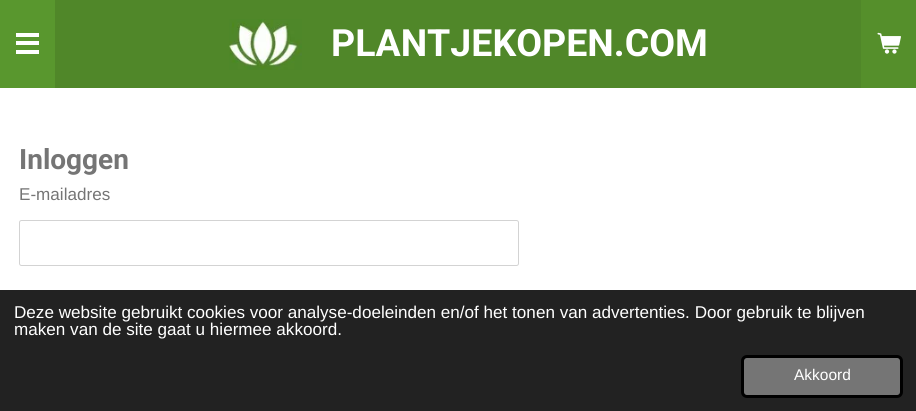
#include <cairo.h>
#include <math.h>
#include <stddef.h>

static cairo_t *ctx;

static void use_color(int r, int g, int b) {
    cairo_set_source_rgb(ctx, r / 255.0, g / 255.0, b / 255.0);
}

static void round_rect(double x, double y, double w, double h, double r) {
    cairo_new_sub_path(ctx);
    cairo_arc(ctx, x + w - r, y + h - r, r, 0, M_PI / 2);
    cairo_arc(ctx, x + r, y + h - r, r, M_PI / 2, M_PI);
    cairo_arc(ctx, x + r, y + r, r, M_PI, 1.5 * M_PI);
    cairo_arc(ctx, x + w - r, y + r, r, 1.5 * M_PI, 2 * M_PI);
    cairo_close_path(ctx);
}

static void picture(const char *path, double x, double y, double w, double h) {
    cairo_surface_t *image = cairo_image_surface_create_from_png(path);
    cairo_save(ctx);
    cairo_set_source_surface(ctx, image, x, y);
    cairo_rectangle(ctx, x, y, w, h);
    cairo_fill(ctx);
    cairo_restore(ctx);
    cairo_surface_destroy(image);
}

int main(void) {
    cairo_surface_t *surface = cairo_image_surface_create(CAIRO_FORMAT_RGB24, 916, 411);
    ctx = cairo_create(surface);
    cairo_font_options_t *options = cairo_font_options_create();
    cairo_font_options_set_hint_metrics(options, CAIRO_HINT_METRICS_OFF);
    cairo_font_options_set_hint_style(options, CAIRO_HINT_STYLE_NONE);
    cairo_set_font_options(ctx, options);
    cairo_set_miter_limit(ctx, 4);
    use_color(80, 135, 41);
    cairo_paint(ctx);
    use_color(89, 151, 46);
    cairo_rectangle(ctx, 0, 0, 55, 88);
    cairo_fill(ctx);
    use_color(255, 255, 255);
    cairo_rectangle(ctx, 16, 41, 23, 4);
    cairo_fill(ctx);
    cairo_rectangle(ctx, 16, 33, 23, 4);
    cairo_fill(ctx);
    cairo_rectangle(ctx, 16, 50, 23, 4);
    cairo_fill(ctx);
    picture("img1.png", 229, 19, 73, 51);
    cairo_select_font_face(ctx, "Roboto", CAIRO_FONT_SLANT_NORMAL, CAIRO_FONT_WEIGHT_BOLD);
    cairo_set_font_size(ctx, 37.5);
    cairo_move_to(ctx, 331, 56);
    cairo_show_text(ctx, "PLANTJEKOPEN.COM");
    use_color(85, 143, 43);
    cairo_rectangle(ctx, 861, 0, 55, 88);
    cairo_fill(ctx);
    picture("img2.png", 877, 32, 24, 22);
    use_color(255, 255, 255);
    cairo_rectangle(ctx, 0, 88, 916, 202);
    cairo_fill(ctx);
    cairo_set_font_size(ctx, 28);
    use_color(117, 117, 117);
    cairo_move_to(ctx, 19, 169);
    cairo_show_text(ctx, "Inloggen");
    cairo_select_font_face(ctx, "Liberation Sans", CAIRO_FONT_SLANT_NORMAL, CAIRO_FONT_WEIGHT_NORMAL);
    cairo_set_font_size(ctx, 17.1);
    cairo_move_to(ctx, 19, 200);
    cairo_show_text(ctx, "E-mailadres");
    round_rect(19.5, 220.5, 499, 45, 2);
    use_color(211, 211, 211);
    cairo_set_line_width(ctx, 1);
    cairo_stroke(ctx);
    use_color(34, 34, 34);
    cairo_rectangle(ctx, 0, 290, 916, 121);
    cairo_fill(ctx);
    use_color(255, 255, 255);
    cairo_move_to(ctx, 14, 318);
    cairo_show_text(ctx, "Deze website gebruikt cookies voor analyse-doeleinden en/of het tonen van advertenties. Door gebruik te blijven");
    cairo_move_to(ctx, 14, 335);
    cairo_show_text(ctx, "maken van de site gaat u hiermee akkoord.");
    use_color(117, 117, 117);
    round_rect(742.5, 356.5, 159, 40, 4.5);
    cairo_fill_preserve(ctx);
    use_color(0, 0, 0);
    cairo_set_line_width(ctx, 3);
    cairo_stroke(ctx);
    cairo_set_font_size(ctx, 15.5);
    use_color(255, 255, 255);
    cairo_move_to(ctx, 794, 380);
    cairo_show_text(ctx, "Akkoord");
    cairo_surface_write_to_png(surface, "result.png");
    cairo_font_options_destroy(options);
    cairo_destroy(ctx);
    cairo_surface_destroy(surface);
    return 0;
}
